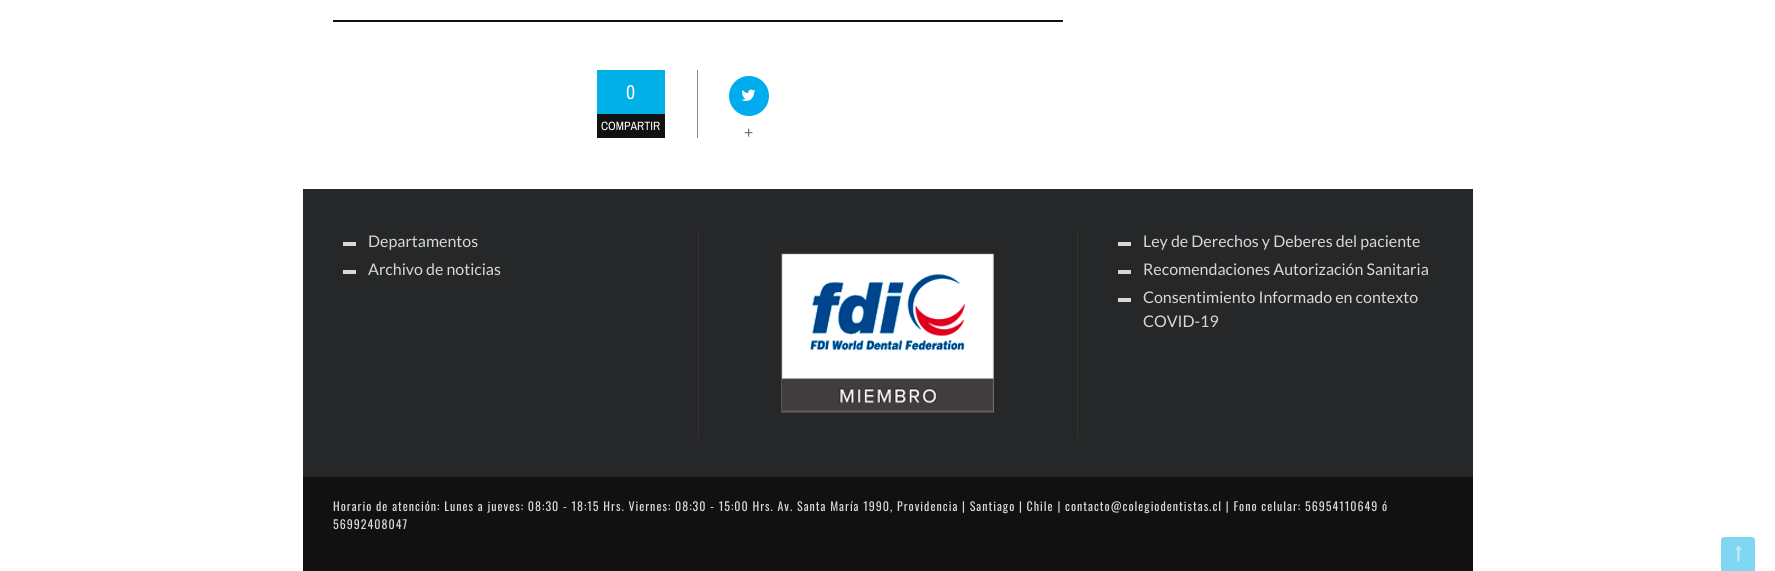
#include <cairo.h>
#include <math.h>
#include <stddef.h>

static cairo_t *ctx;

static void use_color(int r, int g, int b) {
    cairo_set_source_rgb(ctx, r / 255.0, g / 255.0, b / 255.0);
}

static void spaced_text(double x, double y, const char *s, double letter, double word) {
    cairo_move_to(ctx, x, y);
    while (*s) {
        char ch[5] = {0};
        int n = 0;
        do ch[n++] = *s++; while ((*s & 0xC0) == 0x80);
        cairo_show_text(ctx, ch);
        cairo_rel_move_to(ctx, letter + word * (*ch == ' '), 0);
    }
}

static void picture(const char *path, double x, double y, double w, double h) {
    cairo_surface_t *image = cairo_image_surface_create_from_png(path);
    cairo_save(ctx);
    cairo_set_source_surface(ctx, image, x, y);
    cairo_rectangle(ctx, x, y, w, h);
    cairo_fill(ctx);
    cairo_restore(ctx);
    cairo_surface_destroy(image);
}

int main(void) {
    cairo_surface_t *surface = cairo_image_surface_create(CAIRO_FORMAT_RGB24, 1775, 571);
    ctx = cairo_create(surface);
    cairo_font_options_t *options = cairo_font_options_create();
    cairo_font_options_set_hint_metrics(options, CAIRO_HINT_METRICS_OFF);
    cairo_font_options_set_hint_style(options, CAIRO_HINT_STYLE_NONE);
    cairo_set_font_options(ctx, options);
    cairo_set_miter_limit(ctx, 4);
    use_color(255, 255, 255);
    cairo_paint(ctx);
    use_color(17, 17, 17);
    cairo_rectangle(ctx, 333, 20, 730, 2);
    cairo_fill(ctx);
    use_color(136, 136, 136);
    cairo_rectangle(ctx, 697, 70, 1, 68);
    cairo_fill(ctx);
    use_color(0, 175, 229);
    cairo_rectangle(ctx, 597, 70, 68, 44);
    cairo_fill(ctx);
    cairo_select_font_face(ctx, "Archivo Narrow", CAIRO_FONT_SLANT_NORMAL, CAIRO_FONT_WEIGHT_NORMAL);
    cairo_set_font_size(ctx, 20);
    use_color(255, 255, 255);
    cairo_move_to(ctx, 626, 99);
    cairo_show_text(ctx, "0");
    use_color(17, 17, 17);
    cairo_rectangle(ctx, 597, 114, 68, 24);
    cairo_fill(ctx);
    cairo_set_font_size(ctx, 12);
    use_color(255, 255, 255);
    cairo_move_to(ctx, 601, 130);
    cairo_show_text(ctx, "COMPARTIR");
    use_color(0, 172, 238);
    cairo_new_path(ctx);
    cairo_arc(ctx, 749, 96, 20, 0, 2 * M_PI);
    cairo_fill(ctx);
    picture("img1.png", 741, 89, 15, 12);
    cairo_select_font_face(ctx, "Lato", CAIRO_FONT_SLANT_NORMAL, CAIRO_FONT_WEIGHT_NORMAL);
    cairo_set_font_size(ctx, 16);
    use_color(102, 102, 102);
    cairo_move_to(ctx, 744, 138);
    cairo_show_text(ctx, "+");
    use_color(37, 39, 41);
    cairo_rectangle(ctx, 303, 189, 1170, 288);
    cairo_fill(ctx);
    use_color(216, 216, 216);
    cairo_rectangle(ctx, 343, 242, 13, 4);
    cairo_fill(ctx);
    cairo_move_to(ctx, 368, 247);
    cairo_show_text(ctx, "Departamentos");
    cairo_rectangle(ctx, 343, 270, 13, 4);
    cairo_fill(ctx);
    cairo_move_to(ctx, 368, 275);
    cairo_show_text(ctx, "Archivo de noticias");
    use_color(51, 51, 51);
    cairo_rectangle(ctx, 1077, 229, 1, 208);
    cairo_fill(ctx);
    cairo_rectangle(ctx, 698, 229, 1, 208);
    cairo_fill(ctx);
    picture("img2.png", 781, 253, 213, 160);
    use_color(216, 216, 216);
    cairo_rectangle(ctx, 1118, 242, 13, 4);
    cairo_fill(ctx);
    cairo_move_to(ctx, 1143, 247);
    cairo_show_text(ctx, "Ley de Derechos y Deberes del paciente");
    cairo_rectangle(ctx, 1118, 270, 13, 4);
    cairo_fill(ctx);
    cairo_move_to(ctx, 1143, 275);
    cairo_show_text(ctx, "Recomendaciones Autorización Sanitaria");
    cairo_rectangle(ctx, 1118, 298, 13, 4);
    cairo_fill(ctx);
    cairo_move_to(ctx, 1143, 303);
    cairo_show_text(ctx, "Consentimiento Informado en contexto");
    cairo_move_to(ctx, 1143, 327);
    cairo_show_text(ctx, "COVID-19");
    use_color(17, 17, 17);
    cairo_rectangle(ctx, 303, 477, 1170, 94);
    cairo_fill(ctx);
    cairo_select_font_face(ctx, "Oswald", CAIRO_FONT_SLANT_NORMAL, CAIRO_FONT_WEIGHT_NORMAL);
    cairo_set_font_size(ctx, 12);
    use_color(216, 216, 216);
    spaced_text(333, 511, "Horario de atención: Lunes a jueves: 08:30 - 18:15 Hrs. Viernes: 08:30 - 15:00 Hrs. Av. Santa María 1990, Providencia | Santiago | Chile | contacto@colegiodentistas.cl | Fono celular: 56954110649 ó", 1, 0);
    spaced_text(333, 529, "56992408047", 1, 0);
    use_color(128, 215, 242);
    cairo_new_path(ctx);
    cairo_move_to(ctx, 1724, 537);
    cairo_line_to(ctx, 1752, 537);
    cairo_curve_to(ctx, 1753.5, 537, 1755, 538.5, 1755, 540);
    cairo_line_to(ctx, 1755, 571);
    cairo_line_to(ctx, 1721, 571);
    cairo_line_to(ctx, 1721, 540);
    cairo_curve_to(ctx, 1721, 538.5, 1722.5, 537, 1724, 537);
    cairo_close_path(ctx);
    cairo_fill(ctx);
    picture("img3.png", 1735, 546, 7, 16);
    cairo_surface_write_to_png(surface, "result.png");
    cairo_font_options_destroy(options);
    cairo_destroy(ctx);
    cairo_surface_destroy(surface);
    return 0;
}
